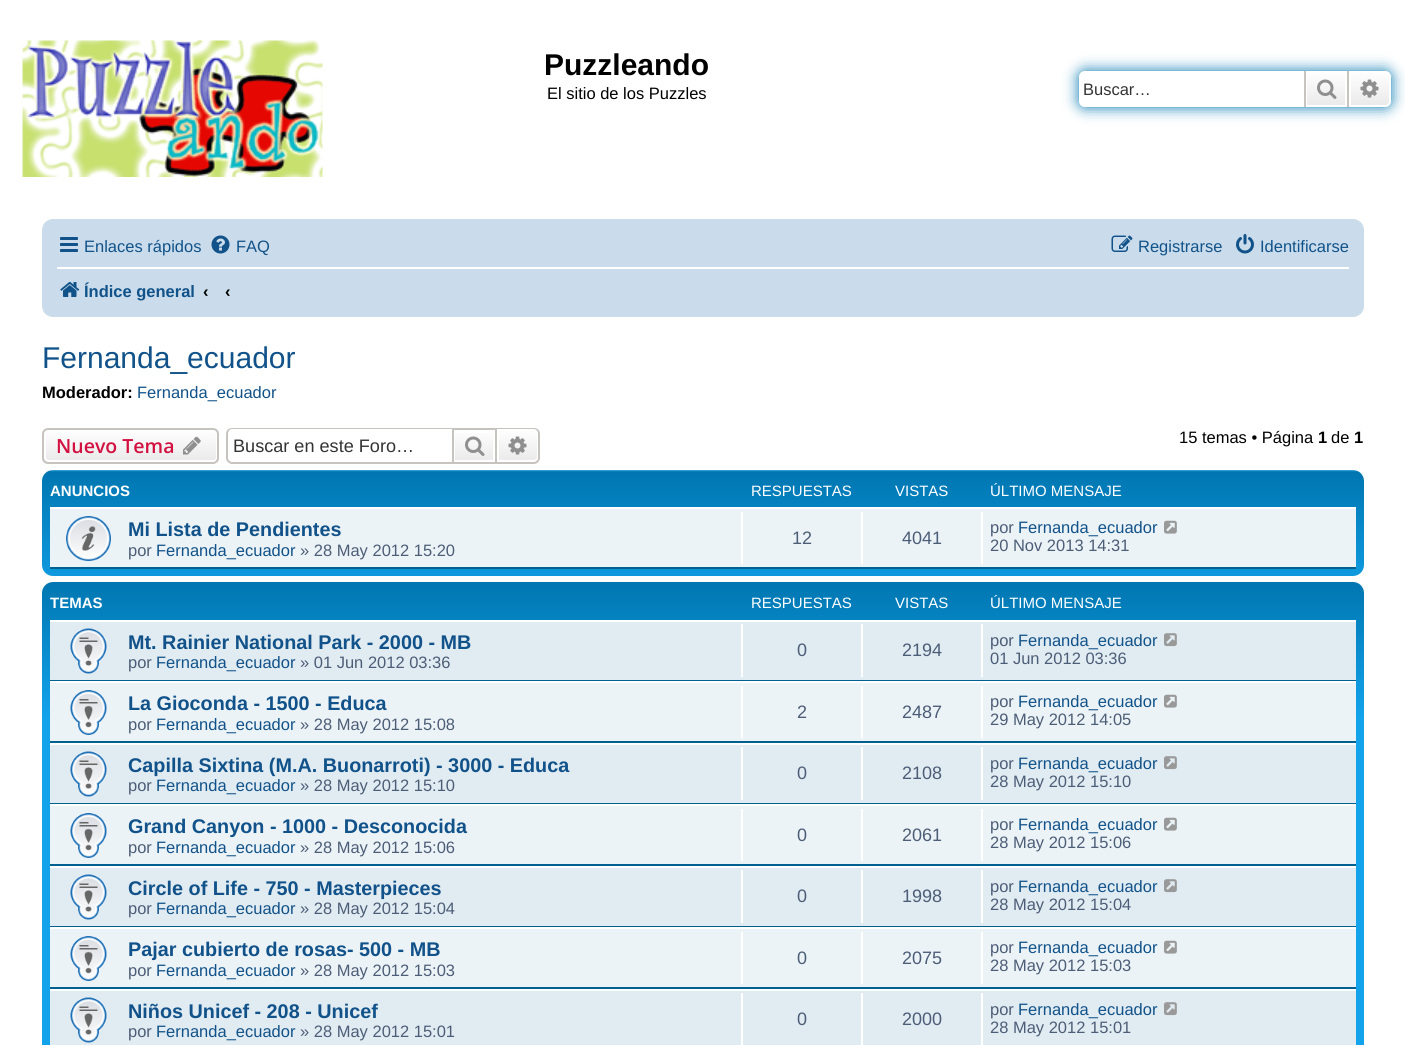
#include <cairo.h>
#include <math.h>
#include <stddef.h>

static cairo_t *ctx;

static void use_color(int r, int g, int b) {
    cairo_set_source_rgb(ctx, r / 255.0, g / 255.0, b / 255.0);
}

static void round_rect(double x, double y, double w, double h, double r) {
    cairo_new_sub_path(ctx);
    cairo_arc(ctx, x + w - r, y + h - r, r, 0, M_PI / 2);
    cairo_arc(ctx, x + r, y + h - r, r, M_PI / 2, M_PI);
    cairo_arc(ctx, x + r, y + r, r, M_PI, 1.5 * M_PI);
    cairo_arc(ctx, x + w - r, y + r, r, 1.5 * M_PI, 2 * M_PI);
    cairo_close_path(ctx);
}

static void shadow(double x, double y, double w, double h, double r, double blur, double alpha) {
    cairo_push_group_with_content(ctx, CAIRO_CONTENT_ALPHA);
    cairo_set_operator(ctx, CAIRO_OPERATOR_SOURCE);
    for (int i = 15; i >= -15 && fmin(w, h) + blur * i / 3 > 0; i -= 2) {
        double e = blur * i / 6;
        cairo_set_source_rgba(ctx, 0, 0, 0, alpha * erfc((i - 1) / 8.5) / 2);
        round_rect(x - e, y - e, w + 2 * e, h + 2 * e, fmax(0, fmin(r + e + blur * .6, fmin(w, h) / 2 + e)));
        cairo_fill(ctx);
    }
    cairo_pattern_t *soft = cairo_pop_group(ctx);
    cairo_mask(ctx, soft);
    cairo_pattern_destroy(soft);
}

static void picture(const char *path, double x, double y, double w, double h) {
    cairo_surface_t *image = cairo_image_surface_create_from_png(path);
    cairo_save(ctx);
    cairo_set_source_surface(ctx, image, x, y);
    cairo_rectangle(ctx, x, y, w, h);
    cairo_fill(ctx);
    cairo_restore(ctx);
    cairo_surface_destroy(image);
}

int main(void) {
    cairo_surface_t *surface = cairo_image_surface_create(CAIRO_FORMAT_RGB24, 1405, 1045);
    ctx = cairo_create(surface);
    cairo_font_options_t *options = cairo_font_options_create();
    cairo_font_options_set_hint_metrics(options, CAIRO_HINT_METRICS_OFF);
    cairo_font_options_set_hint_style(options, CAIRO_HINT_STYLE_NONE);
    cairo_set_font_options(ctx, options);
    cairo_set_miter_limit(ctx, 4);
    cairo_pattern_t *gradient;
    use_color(255, 255, 255);
    cairo_paint(ctx);
    picture("img1.png", 22, 40, 301, 137);
    cairo_select_font_face(ctx, "Liberation Sans", CAIRO_FONT_SLANT_NORMAL, CAIRO_FONT_WEIGHT_BOLD);
    cairo_set_font_size(ctx, 30);
    use_color(0, 0, 0);
    cairo_move_to(ctx, 544, 75);
    cairo_show_text(ctx, "Puzzleando");
    cairo_select_font_face(ctx, "Liberation Sans", CAIRO_FONT_SLANT_NORMAL, CAIRO_FONT_WEIGHT_NORMAL);
    cairo_set_font_size(ctx, 16.5);
    cairo_move_to(ctx, 547, 99);
    cairo_show_text(ctx, "El sitio de los Puzzles");
    use_color(0, 117, 176);
    shadow(1079, 71, 312, 36, 6, 7.5, 1);
    use_color(255, 255, 255);
    cairo_new_path(ctx);
    cairo_move_to(ctx, 1085, 71);
    cairo_line_to(ctx, 1304, 71);
    cairo_line_to(ctx, 1304, 107);
    cairo_line_to(ctx, 1085, 107);
    cairo_curve_to(ctx, 1081.5, 107, 1079, 104.5, 1079, 101);
    cairo_line_to(ctx, 1079, 77);
    cairo_curve_to(ctx, 1079, 73.5, 1081.5, 71, 1085, 71);
    cairo_close_path(ctx);
    cairo_fill(ctx);
    use_color(51, 51, 51);
    cairo_move_to(ctx, 1083, 95);
    cairo_show_text(ctx, "Buscar…");
    gradient = cairo_pattern_create_linear(1326, 71, 1326, 107);
    cairo_pattern_add_color_stop_rgba(gradient, 0, 1, 1, 1, 1);
    cairo_pattern_add_color_stop_rgba(gradient, 1, 0.914, 0.914, 0.914, 1);
    cairo_set_source(ctx, gradient);
    cairo_pattern_destroy(gradient);
    cairo_rectangle(ctx, 1307, 73, 38, 32);
    cairo_fill(ctx);
    cairo_rectangle(ctx, 1306, 72, 40, 34);
    use_color(255, 255, 255);
    cairo_stroke(ctx);
    use_color(199, 195, 191);
    cairo_rectangle(ctx, 1347, 71, 2, 36);
    cairo_fill(ctx);
    cairo_rectangle(ctx, 1304, 71, 2, 36);
    cairo_fill(ctx);
    picture("img2.png", 1317, 79, 20, 20);
    gradient = cairo_pattern_create_linear(1370, 71, 1370, 107);
    cairo_pattern_add_color_stop_rgba(gradient, 0, 1, 1, 1, 1);
    cairo_pattern_add_color_stop_rgba(gradient, 1, 0.914, 0.914, 0.914, 1);
    cairo_set_source(ctx, gradient);
    cairo_pattern_destroy(gradient);
    cairo_new_path(ctx);
    cairo_move_to(ctx, 1350, 72);
    cairo_line_to(ctx, 1385, 72);
    cairo_curve_to(ctx, 1388, 72, 1390, 74, 1390, 77);
    cairo_line_to(ctx, 1390, 101);
    cairo_curve_to(ctx, 1390, 104, 1388, 106, 1385, 106);
    cairo_line_to(ctx, 1350, 106);
    cairo_close_path(ctx);
    cairo_fill_preserve(ctx);
    use_color(255, 255, 255);
    cairo_stroke(ctx);
    picture("img3.png", 1360, 79, 19, 19);
    use_color(202, 220, 235);
    round_rect(42, 219, 1322, 98, 11);
    cairo_fill(ctx);
    picture("img4.png", 60, 237, 18, 15);
    use_color(16, 82, 137);
    cairo_move_to(ctx, 84, 252);
    cairo_show_text(ctx, "Enlaces rápidos");
    picture("img5.png", 211, 235, 19, 19);
    cairo_move_to(ctx, 236, 252);
    cairo_show_text(ctx, "FAQ");
    picture("img6.png", 1111, 235, 22, 17);
    cairo_move_to(ctx, 1138, 252);
    cairo_show_text(ctx, "Registrarse");
    picture("img7.png", 1236, 234, 18, 20);
    cairo_move_to(ctx, 1260, 252);
    cairo_show_text(ctx, "Identificarse");
    use_color(255, 255, 255);
    cairo_rectangle(ctx, 57, 267, 1292, 2);
    cairo_fill(ctx);
    picture("img8.png", 60, 282, 20, 15);
    cairo_select_font_face(ctx, "Liberation Sans", CAIRO_FONT_SLANT_NORMAL, CAIRO_FONT_WEIGHT_BOLD);
    use_color(16, 82, 137);
    cairo_move_to(ctx, 84, 297);
    cairo_show_text(ctx, "Índice general");
    use_color(0, 0, 0);
    cairo_move_to(ctx, 203, 297);
    cairo_show_text(ctx, "‹");
    cairo_move_to(ctx, 225, 297);
    cairo_show_text(ctx, "‹");
    cairo_select_font_face(ctx, "Liberation Sans", CAIRO_FONT_SLANT_NORMAL, CAIRO_FONT_WEIGHT_NORMAL);
    cairo_set_font_size(ctx, 30);
    use_color(16, 82, 137);
    cairo_move_to(ctx, 42, 368);
    cairo_show_text(ctx, "Fernanda_ecuador");
    cairo_select_font_face(ctx, "Liberation Sans", CAIRO_FONT_SLANT_NORMAL, CAIRO_FONT_WEIGHT_BOLD);
    cairo_set_font_size(ctx, 16.5);
    use_color(0, 0, 0);
    cairo_move_to(ctx, 42, 398);
    cairo_show_text(ctx, "Moderador:");
    cairo_select_font_face(ctx, "Liberation Sans", CAIRO_FONT_SLANT_NORMAL, CAIRO_FONT_WEIGHT_NORMAL);
    use_color(16, 82, 137);
    cairo_move_to(ctx, 137, 398);
    cairo_show_text(ctx, "Fernanda_ecuador");
    cairo_save(ctx);
    round_rect(42, 428, 177, 36, 6);
    cairo_clip(ctx);
    gradient = cairo_pattern_create_linear(131, 429, 131, 462);
    cairo_pattern_add_color_stop_rgba(gradient, 0, 1, 1, 1, 1);
    cairo_pattern_add_color_stop_rgba(gradient, 1, 0.914, 0.914, 0.914, 1);
    cairo_set_source(ctx, gradient);
    cairo_pattern_destroy(gradient);
    cairo_rectangle(ctx, 42, 429, 177, 33);
    cairo_fill(ctx);
    cairo_restore(ctx);
    round_rect(45, 430, 172, 31, 4);
    use_color(255, 255, 255);
    cairo_stroke(ctx);
    round_rect(43, 429, 175, 34, 5);
    use_color(199, 195, 191);
    cairo_stroke(ctx);
    cairo_select_font_face(ctx, "Open Sans SemiBold", CAIRO_FONT_SLANT_NORMAL, CAIRO_FONT_WEIGHT_NORMAL);
    cairo_set_font_size(ctx, 19.5);
    use_color(211, 17, 65);
    cairo_move_to(ctx, 56, 453);
    cairo_show_text(ctx, "Nuevo Tema");
    picture("img9.png", 183, 436, 18, 19);
    use_color(199, 195, 191);
    cairo_set_fill_rule(ctx, CAIRO_FILL_RULE_EVEN_ODD);
    cairo_new_path(ctx);
    cairo_move_to(ctx, 232, 428);
    cairo_line_to(ctx, 452, 428);
    cairo_line_to(ctx, 452, 464);
    cairo_line_to(ctx, 232, 464);
    cairo_curve_to(ctx, 229, 464, 226, 461, 226, 458);
    cairo_line_to(ctx, 226, 434);
    cairo_curve_to(ctx, 226, 430, 229, 428, 232, 428);
    cairo_close_path(ctx);
    cairo_move_to(ctx, 232, 429);
    cairo_line_to(ctx, 452, 429);
    cairo_line_to(ctx, 452, 462);
    cairo_line_to(ctx, 232, 462);
    cairo_curve_to(ctx, 230, 462, 228, 460, 228, 458);
    cairo_line_to(ctx, 228, 434);
    cairo_curve_to(ctx, 228, 431, 230, 429, 232, 429);
    cairo_close_path(ctx);
    cairo_fill(ctx);
    cairo_select_font_face(ctx, "Liberation Sans", CAIRO_FONT_SLANT_NORMAL, CAIRO_FONT_WEIGHT_NORMAL);
    cairo_set_font_size(ctx, 18.1);
    use_color(51, 51, 51);
    cairo_move_to(ctx, 233, 452);
    cairo_show_text(ctx, "Buscar en este Foro…");
    gradient = cairo_pattern_create_linear(474, 429, 474, 462);
    cairo_pattern_add_color_stop_rgba(gradient, 0, 1, 1, 1, 1);
    cairo_pattern_add_color_stop_rgba(gradient, 1, 0.914, 0.914, 0.914, 1);
    cairo_set_source(ctx, gradient);
    cairo_pattern_destroy(gradient);
    cairo_rectangle(ctx, 455, 433, 38, 27);
    cairo_fill(ctx);
    cairo_rectangle(ctx, 453, 429, 43, 34);
    use_color(199, 195, 191);
    cairo_stroke(ctx);
    picture("img10.png", 465, 436, 20, 20);
    gradient = cairo_pattern_create_linear(518, 429, 518, 462);
    cairo_pattern_add_color_stop_rgba(gradient, 0, 1, 1, 1, 1);
    cairo_pattern_add_color_stop_rgba(gradient, 1, 0.914, 0.914, 0.914, 1);
    cairo_set_source(ctx, gradient);
    cairo_pattern_destroy(gradient);
    cairo_new_path(ctx);
    cairo_move_to(ctx, 498, 430);
    cairo_line_to(ctx, 534, 430);
    cairo_curve_to(ctx, 536, 430, 538, 432, 538, 434);
    cairo_line_to(ctx, 538, 457);
    cairo_curve_to(ctx, 538, 459, 536, 461, 534, 461);
    cairo_line_to(ctx, 498, 461);
    cairo_close_path(ctx);
    cairo_fill_preserve(ctx);
    use_color(255, 255, 255);
    cairo_stroke(ctx);
    use_color(199, 195, 191);
    cairo_new_path(ctx);
    cairo_move_to(ctx, 496, 428);
    cairo_line_to(ctx, 534, 428);
    cairo_curve_to(ctx, 537, 428, 540, 430, 540, 434);
    cairo_line_to(ctx, 540, 458);
    cairo_curve_to(ctx, 540, 461, 537, 464, 534, 464);
    cairo_line_to(ctx, 496, 464);
    cairo_close_path(ctx);
    cairo_move_to(ctx, 496, 429);
    cairo_line_to(ctx, 534, 429);
    cairo_curve_to(ctx, 536, 429, 538, 431, 538, 434);
    cairo_line_to(ctx, 538, 458);
    cairo_curve_to(ctx, 538, 460, 536, 462, 534, 462);
    cairo_line_to(ctx, 496, 462);
    cairo_close_path(ctx);
    cairo_fill(ctx);
    picture("img11.png", 508, 436, 19, 19);
    cairo_set_font_size(ctx, 16.5);
    use_color(0, 0, 0);
    cairo_move_to(ctx, 1179, 443);
    cairo_show_text(ctx, "15 temas • Página");
    cairo_select_font_face(ctx, "Liberation Sans", CAIRO_FONT_SLANT_NORMAL, CAIRO_FONT_WEIGHT_BOLD);
    cairo_move_to(ctx, 1318, 443);
    cairo_show_text(ctx, "1");
    cairo_select_font_face(ctx, "Liberation Sans", CAIRO_FONT_SLANT_NORMAL, CAIRO_FONT_WEIGHT_NORMAL);
    cairo_move_to(ctx, 1331, 443);
    cairo_show_text(ctx, "de");
    cairo_select_font_face(ctx, "Liberation Sans", CAIRO_FONT_SLANT_NORMAL, CAIRO_FONT_WEIGHT_BOLD);
    cairo_move_to(ctx, 1354, 443);
    cairo_show_text(ctx, "1");
    gradient = cairo_pattern_create_linear(703, 469, 703, 607);
    cairo_pattern_add_color_stop_rgba(gradient, 0, 0.416, 0.808, 1, 1);
    cairo_pattern_add_color_stop_rgba(gradient, 0.02, 0, 0.463, 0.694, 1);
    cairo_pattern_add_color_stop_rgba(gradient, 1, 0.071, 0.639, 0.922, 1);
    cairo_set_source(ctx, gradient);
    cairo_pattern_destroy(gradient);
    round_rect(42, 470, 1322, 106, 11);
    cairo_fill(ctx);
    cairo_set_font_size(ctx, 15);
    use_color(255, 255, 255);
    cairo_move_to(ctx, 50, 496);
    cairo_show_text(ctx, "ANUNCIOS");
    cairo_select_font_face(ctx, "Liberation Sans", CAIRO_FONT_SLANT_NORMAL, CAIRO_FONT_WEIGHT_NORMAL);
    cairo_move_to(ctx, 751, 496);
    cairo_show_text(ctx, "RESPUESTAS");
    cairo_move_to(ctx, 895, 496);
    cairo_show_text(ctx, "VISTAS");
    cairo_move_to(ctx, 990, 496);
    cairo_show_text(ctx, "ÚLTIMO MENSAJE");
    use_color(236, 243, 247);
    cairo_rectangle(ctx, 50, 509, 1306, 58);
    cairo_fill(ctx);
    use_color(255, 255, 255);
    cairo_rectangle(ctx, 50, 507, 1306, 2);
    cairo_fill(ctx);
    use_color(0, 96, 143);
    cairo_rectangle(ctx, 50, 567, 1306, 2);
    cairo_fill(ctx);
    picture("img12.png", 66, 516, 45, 45);
    cairo_select_font_face(ctx, "Liberation Sans", CAIRO_FONT_SLANT_NORMAL, CAIRO_FONT_WEIGHT_BOLD);
    cairo_set_font_size(ctx, 19.8);
    use_color(16, 82, 137);
    cairo_move_to(ctx, 128, 536);
    cairo_show_text(ctx, "Mi Lista de Pendientes");
    cairo_select_font_face(ctx, "Liberation Sans", CAIRO_FONT_SLANT_NORMAL, CAIRO_FONT_WEIGHT_NORMAL);
    cairo_set_font_size(ctx, 16.5);
    use_color(76, 93, 119);
    cairo_move_to(ctx, 128, 556);
    cairo_show_text(ctx, "por");
    use_color(16, 82, 137);
    cairo_move_to(ctx, 156, 556);
    cairo_show_text(ctx, "Fernanda_ecuador");
    use_color(76, 93, 119);
    cairo_move_to(ctx, 300, 556);
    cairo_show_text(ctx, "» 28 May 2012 15:20");
    use_color(255, 255, 255);
    cairo_rectangle(ctx, 741, 512, 2, 52);
    cairo_fill(ctx);
    cairo_set_font_size(ctx, 18);
    use_color(76, 93, 119);
    cairo_move_to(ctx, 792, 544);
    cairo_show_text(ctx, "12");
    use_color(255, 255, 255);
    cairo_rectangle(ctx, 861, 512, 2, 52);
    cairo_fill(ctx);
    use_color(76, 93, 119);
    cairo_move_to(ctx, 902, 544);
    cairo_show_text(ctx, "4041");
    use_color(255, 255, 255);
    cairo_rectangle(ctx, 981, 512, 2, 52);
    cairo_fill(ctx);
    cairo_set_font_size(ctx, 16.5);
    use_color(76, 93, 119);
    cairo_move_to(ctx, 990, 533);
    cairo_show_text(ctx, "por");
    use_color(16, 82, 137);
    cairo_move_to(ctx, 1018, 533);
    cairo_show_text(ctx, "Fernanda_ecuador");
    picture("img13.png", 1164, 520, 13, 14);
    use_color(76, 93, 119);
    cairo_move_to(ctx, 990, 551);
    cairo_show_text(ctx, "20 Nov 2013 14:31");
    gradient = cairo_pattern_create_linear(703, 582, 703, 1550);
    cairo_pattern_add_color_stop_rgba(gradient, 0, 0.416, 0.808, 1, 1);
    cairo_pattern_add_color_stop_rgba(gradient, 0, 0, 0.463, 0.694, 1);
    cairo_pattern_add_color_stop_rgba(gradient, 0.14, 0.071, 0.639, 0.922, 1);
    cairo_pattern_add_color_stop_rgba(gradient, 1, 0.071, 0.639, 0.922, 1);
    cairo_set_source(ctx, gradient);
    cairo_pattern_destroy(gradient);
    round_rect(42, 582, 1322, 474, 11);
    cairo_fill(ctx);
    cairo_save(ctx);
    cairo_set_fill_rule(ctx, CAIRO_FILL_RULE_WINDING);
    cairo_rectangle(ctx, 50, 590, 1306, 30);
    cairo_clip(ctx);
    cairo_select_font_face(ctx, "Liberation Sans", CAIRO_FONT_SLANT_NORMAL, CAIRO_FONT_WEIGHT_BOLD);
    cairo_set_font_size(ctx, 15);
    use_color(255, 255, 255);
    cairo_move_to(ctx, 50, 608);
    cairo_show_text(ctx, "TEMAS");
    cairo_restore(ctx);
    cairo_set_font_size(ctx, 15);
    use_color(255, 255, 255);
    cairo_move_to(ctx, 751, 608);
    cairo_show_text(ctx, "RESPUESTAS");
    cairo_move_to(ctx, 895, 608);
    cairo_show_text(ctx, "VISTAS");
    cairo_move_to(ctx, 990, 608);
    cairo_show_text(ctx, "ÚLTIMO MENSAJE");
    use_color(225, 235, 242);
    cairo_rectangle(ctx, 50, 622, 1306, 58);
    cairo_fill(ctx);
    use_color(255, 255, 255);
    cairo_rectangle(ctx, 50, 620, 1306, 2);
    cairo_fill(ctx);
    use_color(0, 96, 143);
    cairo_rectangle(ctx, 50, 680, 1306, 1);
    cairo_fill(ctx);
    picture("img14.png", 70, 628, 37, 46);
    cairo_select_font_face(ctx, "Liberation Sans", CAIRO_FONT_SLANT_NORMAL, CAIRO_FONT_WEIGHT_BOLD);
    cairo_set_font_size(ctx, 19.8);
    use_color(16, 82, 137);
    cairo_move_to(ctx, 128, 649);
    cairo_show_text(ctx, "Mt. Rainier National Park - 2000 - MB");
    cairo_select_font_face(ctx, "Liberation Sans", CAIRO_FONT_SLANT_NORMAL, CAIRO_FONT_WEIGHT_NORMAL);
    cairo_set_font_size(ctx, 16.5);
    use_color(76, 93, 119);
    cairo_move_to(ctx, 128, 668);
    cairo_show_text(ctx, "por");
    use_color(16, 82, 137);
    cairo_move_to(ctx, 156, 668);
    cairo_show_text(ctx, "Fernanda_ecuador");
    use_color(76, 93, 119);
    cairo_move_to(ctx, 300, 668);
    cairo_show_text(ctx, "» 01 Jun 2012 03:36");
    use_color(255, 255, 255);
    cairo_rectangle(ctx, 741, 624, 2, 53);
    cairo_fill(ctx);
    cairo_set_font_size(ctx, 18);
    use_color(76, 93, 119);
    cairo_move_to(ctx, 797, 656);
    cairo_show_text(ctx, "0");
    use_color(255, 255, 255);
    cairo_rectangle(ctx, 861, 624, 2, 53);
    cairo_fill(ctx);
    use_color(76, 93, 119);
    cairo_move_to(ctx, 902, 656);
    cairo_show_text(ctx, "2194");
    use_color(255, 255, 255);
    cairo_rectangle(ctx, 981, 624, 2, 53);
    cairo_fill(ctx);
    cairo_set_font_size(ctx, 16.5);
    use_color(76, 93, 119);
    cairo_move_to(ctx, 990, 646);
    cairo_show_text(ctx, "por");
    use_color(16, 82, 137);
    cairo_move_to(ctx, 1018, 646);
    cairo_show_text(ctx, "Fernanda_ecuador");
    picture("img15.png", 1164, 633, 13, 14);
    use_color(76, 93, 119);
    cairo_move_to(ctx, 990, 664);
    cairo_show_text(ctx, "01 Jun 2012 03:36");
    use_color(236, 243, 247);
    cairo_rectangle(ctx, 50, 683, 1306, 58);
    cairo_fill(ctx);
    use_color(255, 255, 255);
    cairo_rectangle(ctx, 50, 681, 1306, 2);
    cairo_fill(ctx);
    use_color(0, 96, 143);
    cairo_rectangle(ctx, 50, 741, 1306, 2);
    cairo_fill(ctx);
    picture("img16.png", 70, 690, 37, 45);
    cairo_select_font_face(ctx, "Liberation Sans", CAIRO_FONT_SLANT_NORMAL, CAIRO_FONT_WEIGHT_BOLD);
    cairo_set_font_size(ctx, 19.8);
    use_color(16, 82, 137);
    cairo_move_to(ctx, 128, 710);
    cairo_show_text(ctx, "La Gioconda - 1500 - Educa");
    cairo_select_font_face(ctx, "Liberation Sans", CAIRO_FONT_SLANT_NORMAL, CAIRO_FONT_WEIGHT_NORMAL);
    cairo_set_font_size(ctx, 16.5);
    use_color(76, 93, 119);
    cairo_move_to(ctx, 128, 730);
    cairo_show_text(ctx, "por");
    use_color(16, 82, 137);
    cairo_move_to(ctx, 156, 730);
    cairo_show_text(ctx, "Fernanda_ecuador");
    use_color(76, 93, 119);
    cairo_move_to(ctx, 300, 730);
    cairo_show_text(ctx, "» 28 May 2012 15:08");
    use_color(255, 255, 255);
    cairo_rectangle(ctx, 741, 686, 2, 52);
    cairo_fill(ctx);
    cairo_set_font_size(ctx, 18);
    use_color(76, 93, 119);
    cairo_move_to(ctx, 797, 718);
    cairo_show_text(ctx, "2");
    use_color(255, 255, 255);
    cairo_rectangle(ctx, 861, 686, 2, 52);
    cairo_fill(ctx);
    use_color(76, 93, 119);
    cairo_move_to(ctx, 902, 718);
    cairo_show_text(ctx, "2487");
    use_color(255, 255, 255);
    cairo_rectangle(ctx, 981, 686, 2, 52);
    cairo_fill(ctx);
    cairo_set_font_size(ctx, 16.5);
    use_color(76, 93, 119);
    cairo_move_to(ctx, 990, 707);
    cairo_show_text(ctx, "por");
    use_color(16, 82, 137);
    cairo_move_to(ctx, 1018, 707);
    cairo_show_text(ctx, "Fernanda_ecuador");
    picture("img13.png", 1164, 694, 13, 14);
    use_color(76, 93, 119);
    cairo_move_to(ctx, 990, 725);
    cairo_show_text(ctx, "29 May 2012 14:05");
    use_color(225, 235, 242);
    cairo_rectangle(ctx, 50, 745, 1306, 58);
    cairo_fill(ctx);
    use_color(255, 255, 255);
    cairo_rectangle(ctx, 50, 743, 1306, 2);
    cairo_fill(ctx);
    use_color(0, 96, 143);
    cairo_rectangle(ctx, 50, 803, 1306, 1);
    cairo_fill(ctx);
    picture("img14.png", 70, 751, 37, 46);
    cairo_select_font_face(ctx, "Liberation Sans", CAIRO_FONT_SLANT_NORMAL, CAIRO_FONT_WEIGHT_BOLD);
    cairo_set_font_size(ctx, 19.8);
    use_color(16, 82, 137);
    cairo_move_to(ctx, 128, 772);
    cairo_show_text(ctx, "Capilla Sixtina (M.A. Buonarroti) - 3000 - Educa");
    cairo_select_font_face(ctx, "Liberation Sans", CAIRO_FONT_SLANT_NORMAL, CAIRO_FONT_WEIGHT_NORMAL);
    cairo_set_font_size(ctx, 16.5);
    use_color(76, 93, 119);
    cairo_move_to(ctx, 128, 791);
    cairo_show_text(ctx, "por");
    use_color(16, 82, 137);
    cairo_move_to(ctx, 156, 791);
    cairo_show_text(ctx, "Fernanda_ecuador");
    use_color(76, 93, 119);
    cairo_move_to(ctx, 300, 791);
    cairo_show_text(ctx, "» 28 May 2012 15:10");
    use_color(255, 255, 255);
    cairo_rectangle(ctx, 741, 747, 2, 53);
    cairo_fill(ctx);
    cairo_set_font_size(ctx, 18);
    use_color(76, 93, 119);
    cairo_move_to(ctx, 797, 779);
    cairo_show_text(ctx, "0");
    use_color(255, 255, 255);
    cairo_rectangle(ctx, 861, 747, 2, 53);
    cairo_fill(ctx);
    use_color(76, 93, 119);
    cairo_move_to(ctx, 902, 779);
    cairo_show_text(ctx, "2108");
    use_color(255, 255, 255);
    cairo_rectangle(ctx, 981, 747, 2, 53);
    cairo_fill(ctx);
    cairo_set_font_size(ctx, 16.5);
    use_color(76, 93, 119);
    cairo_move_to(ctx, 990, 769);
    cairo_show_text(ctx, "por");
    use_color(16, 82, 137);
    cairo_move_to(ctx, 1018, 769);
    cairo_show_text(ctx, "Fernanda_ecuador");
    picture("img15.png", 1164, 756, 13, 14);
    use_color(76, 93, 119);
    cairo_move_to(ctx, 990, 787);
    cairo_show_text(ctx, "28 May 2012 15:10");
    use_color(236, 243, 247);
    cairo_rectangle(ctx, 50, 806, 1306, 58);
    cairo_fill(ctx);
    use_color(255, 255, 255);
    cairo_rectangle(ctx, 50, 804, 1306, 2);
    cairo_fill(ctx);
    use_color(0, 96, 143);
    cairo_rectangle(ctx, 50, 864, 1306, 2);
    cairo_fill(ctx);
    picture("img16.png", 70, 813, 37, 45);
    cairo_select_font_face(ctx, "Liberation Sans", CAIRO_FONT_SLANT_NORMAL, CAIRO_FONT_WEIGHT_BOLD);
    cairo_set_font_size(ctx, 19.8);
    use_color(16, 82, 137);
    cairo_move_to(ctx, 128, 833);
    cairo_show_text(ctx, "Grand Canyon - 1000 - Desconocida");
    cairo_select_font_face(ctx, "Liberation Sans", CAIRO_FONT_SLANT_NORMAL, CAIRO_FONT_WEIGHT_NORMAL);
    cairo_set_font_size(ctx, 16.5);
    use_color(76, 93, 119);
    cairo_move_to(ctx, 128, 853);
    cairo_show_text(ctx, "por");
    use_color(16, 82, 137);
    cairo_move_to(ctx, 156, 853);
    cairo_show_text(ctx, "Fernanda_ecuador");
    use_color(76, 93, 119);
    cairo_move_to(ctx, 300, 853);
    cairo_show_text(ctx, "» 28 May 2012 15:06");
    use_color(255, 255, 255);
    cairo_rectangle(ctx, 741, 809, 2, 52);
    cairo_fill(ctx);
    cairo_set_font_size(ctx, 18);
    use_color(76, 93, 119);
    cairo_move_to(ctx, 797, 841);
    cairo_show_text(ctx, "0");
    use_color(255, 255, 255);
    cairo_rectangle(ctx, 861, 809, 2, 52);
    cairo_fill(ctx);
    use_color(76, 93, 119);
    cairo_move_to(ctx, 902, 841);
    cairo_show_text(ctx, "2061");
    use_color(255, 255, 255);
    cairo_rectangle(ctx, 981, 809, 2, 52);
    cairo_fill(ctx);
    cairo_set_font_size(ctx, 16.5);
    use_color(76, 93, 119);
    cairo_move_to(ctx, 990, 830);
    cairo_show_text(ctx, "por");
    use_color(16, 82, 137);
    cairo_move_to(ctx, 1018, 830);
    cairo_show_text(ctx, "Fernanda_ecuador");
    picture("img13.png", 1164, 817, 13, 14);
    use_color(76, 93, 119);
    cairo_move_to(ctx, 990, 848);
    cairo_show_text(ctx, "28 May 2012 15:06");
    use_color(225, 235, 242);
    cairo_rectangle(ctx, 50, 868, 1306, 58);
    cairo_fill(ctx);
    use_color(255, 255, 255);
    cairo_rectangle(ctx, 50, 866, 1306, 2);
    cairo_fill(ctx);
    use_color(0, 96, 143);
    cairo_rectangle(ctx, 50, 926, 1306, 1);
    cairo_fill(ctx);
    picture("img14.png", 70, 874, 37, 46);
    cairo_select_font_face(ctx, "Liberation Sans", CAIRO_FONT_SLANT_NORMAL, CAIRO_FONT_WEIGHT_BOLD);
    cairo_set_font_size(ctx, 19.8);
    use_color(16, 82, 137);
    cairo_move_to(ctx, 128, 895);
    cairo_show_text(ctx, "Circle of Life - 750 - Masterpieces");
    cairo_select_font_face(ctx, "Liberation Sans", CAIRO_FONT_SLANT_NORMAL, CAIRO_FONT_WEIGHT_NORMAL);
    cairo_set_font_size(ctx, 16.5);
    use_color(76, 93, 119);
    cairo_move_to(ctx, 128, 914);
    cairo_show_text(ctx, "por");
    use_color(16, 82, 137);
    cairo_move_to(ctx, 156, 914);
    cairo_show_text(ctx, "Fernanda_ecuador");
    use_color(76, 93, 119);
    cairo_move_to(ctx, 300, 914);
    cairo_show_text(ctx, "» 28 May 2012 15:04");
    use_color(255, 255, 255);
    cairo_rectangle(ctx, 741, 870, 2, 53);
    cairo_fill(ctx);
    cairo_set_font_size(ctx, 18);
    use_color(76, 93, 119);
    cairo_move_to(ctx, 797, 902);
    cairo_show_text(ctx, "0");
    use_color(255, 255, 255);
    cairo_rectangle(ctx, 861, 870, 2, 53);
    cairo_fill(ctx);
    use_color(76, 93, 119);
    cairo_move_to(ctx, 902, 902);
    cairo_show_text(ctx, "1998");
    use_color(255, 255, 255);
    cairo_rectangle(ctx, 981, 870, 2, 53);
    cairo_fill(ctx);
    cairo_set_font_size(ctx, 16.5);
    use_color(76, 93, 119);
    cairo_move_to(ctx, 990, 892);
    cairo_show_text(ctx, "por");
    use_color(16, 82, 137);
    cairo_move_to(ctx, 1018, 892);
    cairo_show_text(ctx, "Fernanda_ecuador");
    picture("img15.png", 1164, 879, 13, 14);
    use_color(76, 93, 119);
    cairo_move_to(ctx, 990, 910);
    cairo_show_text(ctx, "28 May 2012 15:04");
    use_color(236, 243, 247);
    cairo_rectangle(ctx, 50, 929, 1306, 58);
    cairo_fill(ctx);
    use_color(255, 255, 255);
    cairo_rectangle(ctx, 50, 927, 1306, 2);
    cairo_fill(ctx);
    use_color(0, 96, 143);
    cairo_rectangle(ctx, 50, 987, 1306, 2);
    cairo_fill(ctx);
    picture("img16.png", 70, 936, 37, 45);
    cairo_select_font_face(ctx, "Liberation Sans", CAIRO_FONT_SLANT_NORMAL, CAIRO_FONT_WEIGHT_BOLD);
    cairo_set_font_size(ctx, 19.8);
    use_color(16, 82, 137);
    cairo_move_to(ctx, 128, 956);
    cairo_show_text(ctx, "Pajar cubierto de rosas- 500 - MB");
    cairo_select_font_face(ctx, "Liberation Sans", CAIRO_FONT_SLANT_NORMAL, CAIRO_FONT_WEIGHT_NORMAL);
    cairo_set_font_size(ctx, 16.5);
    use_color(76, 93, 119);
    cairo_move_to(ctx, 128, 976);
    cairo_show_text(ctx, "por");
    use_color(16, 82, 137);
    cairo_move_to(ctx, 156, 976);
    cairo_show_text(ctx, "Fernanda_ecuador");
    use_color(76, 93, 119);
    cairo_move_to(ctx, 300, 976);
    cairo_show_text(ctx, "» 28 May 2012 15:03");
    use_color(255, 255, 255);
    cairo_rectangle(ctx, 741, 932, 2, 52);
    cairo_fill(ctx);
    cairo_set_font_size(ctx, 18);
    use_color(76, 93, 119);
    cairo_move_to(ctx, 797, 964);
    cairo_show_text(ctx, "0");
    use_color(255, 255, 255);
    cairo_rectangle(ctx, 861, 932, 2, 52);
    cairo_fill(ctx);
    use_color(76, 93, 119);
    cairo_move_to(ctx, 902, 964);
    cairo_show_text(ctx, "2075");
    use_color(255, 255, 255);
    cairo_rectangle(ctx, 981, 932, 2, 52);
    cairo_fill(ctx);
    cairo_set_font_size(ctx, 16.5);
    use_color(76, 93, 119);
    cairo_move_to(ctx, 990, 953);
    cairo_show_text(ctx, "por");
    use_color(16, 82, 137);
    cairo_move_to(ctx, 1018, 953);
    cairo_show_text(ctx, "Fernanda_ecuador");
    picture("img13.png", 1164, 940, 13, 14);
    use_color(76, 93, 119);
    cairo_move_to(ctx, 990, 971);
    cairo_show_text(ctx, "28 May 2012 15:03");
    use_color(225, 235, 242);
    cairo_rectangle(ctx, 50, 991, 1306, 54);
    cairo_fill(ctx);
    use_color(255, 255, 255);
    cairo_rectangle(ctx, 50, 989, 1306, 2);
    cairo_fill(ctx);
    picture("img14.png", 70, 997, 37, 46);
    cairo_select_font_face(ctx, "Liberation Sans", CAIRO_FONT_SLANT_NORMAL, CAIRO_FONT_WEIGHT_BOLD);
    cairo_set_font_size(ctx, 19.8);
    use_color(16, 82, 137);
    cairo_move_to(ctx, 128, 1018);
    cairo_show_text(ctx, "Niños Unicef - 208 - Unicef");
    cairo_select_font_face(ctx, "Liberation Sans", CAIRO_FONT_SLANT_NORMAL, CAIRO_FONT_WEIGHT_NORMAL);
    cairo_set_font_size(ctx, 16.5);
    use_color(76, 93, 119);
    cairo_move_to(ctx, 128, 1037);
    cairo_show_text(ctx, "por");
    use_color(16, 82, 137);
    cairo_move_to(ctx, 156, 1037);
    cairo_show_text(ctx, "Fernanda_ecuador");
    use_color(76, 93, 119);
    cairo_move_to(ctx, 300, 1037);
    cairo_show_text(ctx, "» 28 May 2012 15:01");
    use_color(255, 255, 255);
    cairo_rectangle(ctx, 741, 993, 2, 52);
    cairo_fill(ctx);
    cairo_set_font_size(ctx, 18);
    use_color(76, 93, 119);
    cairo_move_to(ctx, 797, 1025);
    cairo_show_text(ctx, "0");
    use_color(255, 255, 255);
    cairo_rectangle(ctx, 861, 993, 2, 52);
    cairo_fill(ctx);
    use_color(76, 93, 119);
    cairo_move_to(ctx, 902, 1025);
    cairo_show_text(ctx, "2000");
    use_color(255, 255, 255);
    cairo_rectangle(ctx, 981, 993, 2, 52);
    cairo_fill(ctx);
    cairo_set_font_size(ctx, 16.5);
    use_color(76, 93, 119);
    cairo_move_to(ctx, 990, 1015);
    cairo_show_text(ctx, "por");
    use_color(16, 82, 137);
    cairo_move_to(ctx, 1018, 1015);
    cairo_show_text(ctx, "Fernanda_ecuador");
    picture("img15.png", 1164, 1002, 13, 14);
    use_color(76, 93, 119);
    cairo_move_to(ctx, 990, 1033);
    cairo_show_text(ctx, "28 May 2012 15:01");
    cairo_surface_write_to_png(surface, "result.png");
    cairo_font_options_destroy(options);
    cairo_destroy(ctx);
    cairo_surface_destroy(surface);
    return 0;
}
